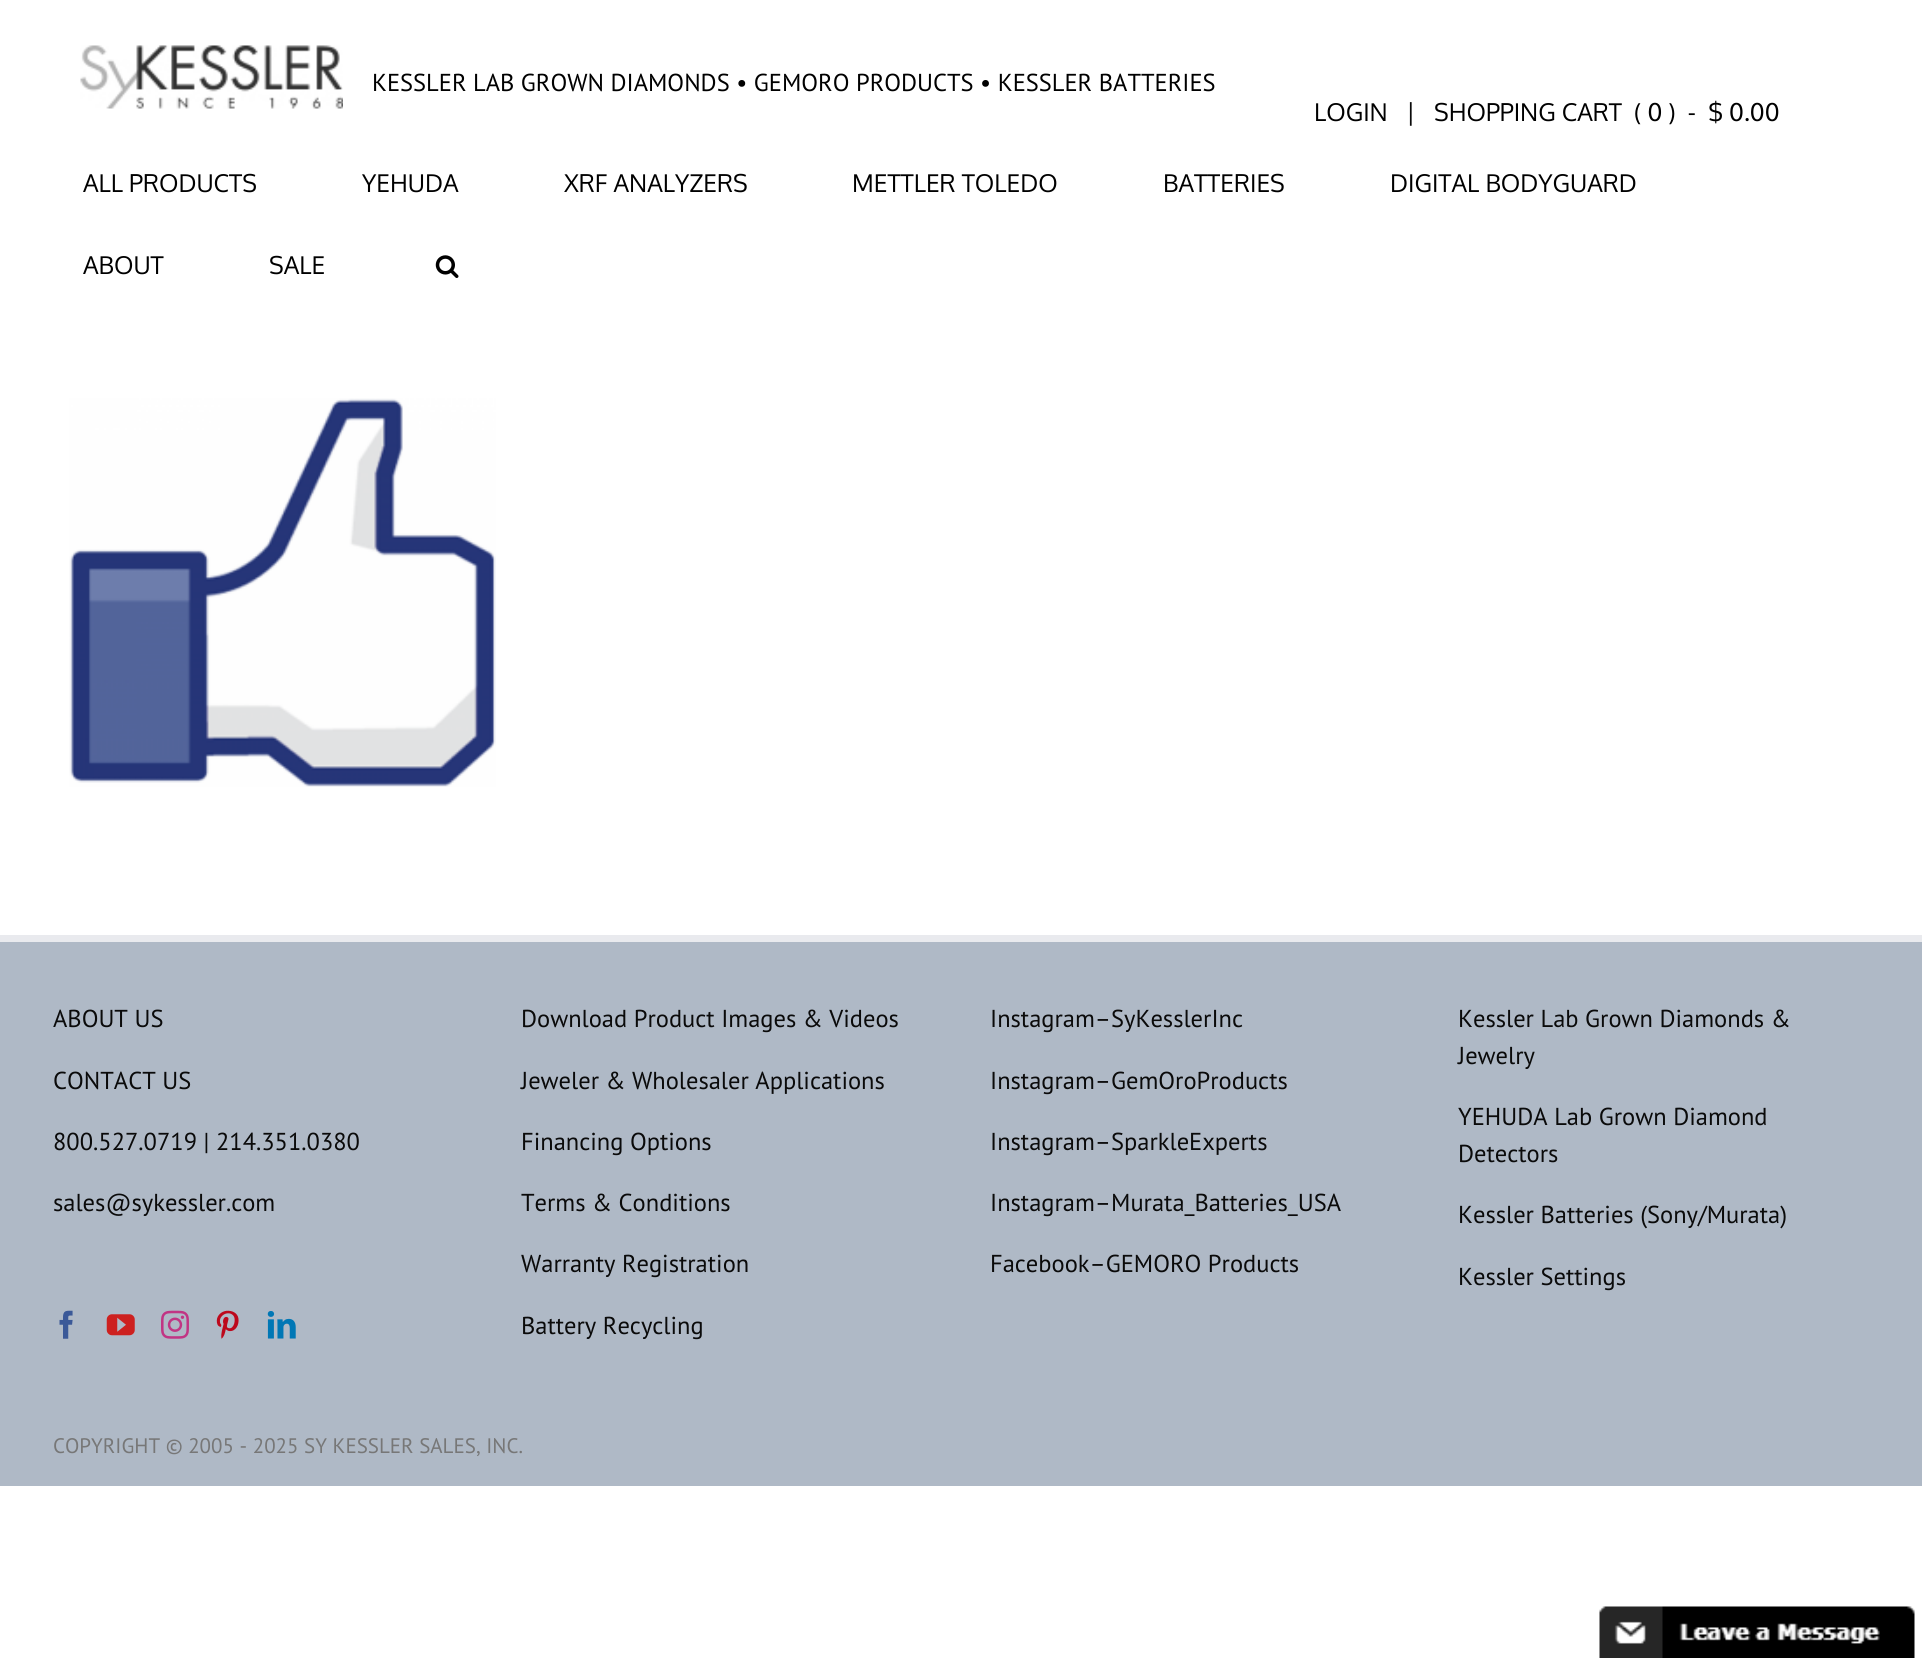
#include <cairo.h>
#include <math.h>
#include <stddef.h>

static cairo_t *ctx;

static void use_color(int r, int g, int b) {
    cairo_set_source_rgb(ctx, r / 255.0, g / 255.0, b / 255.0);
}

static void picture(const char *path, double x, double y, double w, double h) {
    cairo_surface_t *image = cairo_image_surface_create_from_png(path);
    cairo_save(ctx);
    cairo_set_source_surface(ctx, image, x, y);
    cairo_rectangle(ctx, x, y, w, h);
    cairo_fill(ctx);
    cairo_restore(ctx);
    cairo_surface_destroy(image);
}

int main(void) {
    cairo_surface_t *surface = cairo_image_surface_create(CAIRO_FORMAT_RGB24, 1922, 1658);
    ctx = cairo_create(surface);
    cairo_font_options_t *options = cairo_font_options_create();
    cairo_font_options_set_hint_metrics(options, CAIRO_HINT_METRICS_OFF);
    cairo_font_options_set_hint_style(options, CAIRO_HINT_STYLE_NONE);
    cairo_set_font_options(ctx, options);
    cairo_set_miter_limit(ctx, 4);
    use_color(255, 255, 255);
    cairo_paint(ctx);
    picture("img1.png", 80, 45, 263, 64);
    cairo_select_font_face(ctx, "PT Sans", CAIRO_FONT_SLANT_NORMAL, CAIRO_FONT_WEIGHT_NORMAL);
    cairo_set_font_size(ctx, 24.5);
    use_color(0, 0, 0);
    cairo_move_to(ctx, 372, 91);
    cairo_show_text(ctx, "KESSLER LAB GROWN DIAMONDS • GEMORO PRODUCTS • KESSLER BATTERIES");
    cairo_select_font_face(ctx, "Oxygen", CAIRO_FONT_SLANT_NORMAL, CAIRO_FONT_WEIGHT_NORMAL);
    cairo_move_to(ctx, 1314, 121);
    cairo_show_text(ctx, "LOGIN");
    use_color(10, 10, 10);
    cairo_move_to(ctx, 1406, 121);
    cairo_show_text(ctx, "|");
    use_color(0, 0, 0);
    cairo_move_to(ctx, 1434, 121);
    cairo_show_text(ctx, "SHOPPING CART");
    cairo_move_to(ctx, 1634, 121);
    cairo_show_text(ctx, "( 0 )  -  $ 0.00");
    cairo_move_to(ctx, 83, 192);
    cairo_show_text(ctx, "ALL PRODUCTS");
    cairo_move_to(ctx, 362, 192);
    cairo_show_text(ctx, "YEHUDA");
    cairo_move_to(ctx, 564, 192);
    cairo_show_text(ctx, "XRF ANALYZERS");
    cairo_move_to(ctx, 852, 192);
    cairo_show_text(ctx, "METTLER TOLEDO");
    cairo_move_to(ctx, 1163, 192);
    cairo_show_text(ctx, "BATTERIES");
    cairo_move_to(ctx, 1390, 192);
    cairo_show_text(ctx, "DIGITAL BODYGUARD");
    cairo_move_to(ctx, 83, 274);
    cairo_show_text(ctx, "ABOUT");
    cairo_move_to(ctx, 269, 274);
    cairo_show_text(ctx, "SALE");
    picture("img2.png", 435, 255, 24, 23);
    picture("img3.png", 69, 398, 427, 389);
    use_color(175, 185, 198);
    cairo_rectangle(ctx, 0, 942, 1922, 544);
    cairo_fill(ctx);
    use_color(233, 234, 238);
    cairo_rectangle(ctx, 0, 935, 1922, 7);
    cairo_fill(ctx);
    cairo_select_font_face(ctx, "PT Sans", CAIRO_FONT_SLANT_NORMAL, CAIRO_FONT_WEIGHT_NORMAL);
    use_color(10, 10, 10);
    cairo_move_to(ctx, 53, 1027);
    cairo_show_text(ctx, "ABOUT US");
    cairo_move_to(ctx, 53, 1089);
    cairo_show_text(ctx, "CONTACT US");
    cairo_move_to(ctx, 53, 1150);
    cairo_show_text(ctx, "800.527.0719 | 214.351.0380");
    cairo_move_to(ctx, 53, 1211);
    cairo_show_text(ctx, "sales@sykessler.com");
    picture("img4.png", 59, 1310, 14, 29);
    picture("img5.png", 106, 1314, 29, 22);
    picture("img6.png", 161, 1310, 28, 29);
    picture("img7.png", 216, 1310, 23, 29);
    picture("img8.png", 267, 1311, 29, 28);
    cairo_move_to(ctx, 521, 1027);
    cairo_show_text(ctx, "Download Product Images & Videos");
    cairo_move_to(ctx, 521, 1089);
    cairo_show_text(ctx, "Jeweler & Wholesaler Applications");
    cairo_move_to(ctx, 521, 1150);
    cairo_show_text(ctx, "Financing Options");
    cairo_move_to(ctx, 521, 1211);
    cairo_show_text(ctx, "Terms & Conditions");
    cairo_move_to(ctx, 521, 1272);
    cairo_show_text(ctx, "Warranty Registration");
    cairo_move_to(ctx, 521, 1334);
    cairo_show_text(ctx, "Battery Recycling");
    cairo_move_to(ctx, 990, 1027);
    cairo_show_text(ctx, "Instagram–SyKesslerInc");
    cairo_move_to(ctx, 990, 1089);
    cairo_show_text(ctx, "Instagram–GemOroProducts");
    cairo_move_to(ctx, 990, 1150);
    cairo_show_text(ctx, "Instagram–SparkleExperts");
    cairo_move_to(ctx, 990, 1211);
    cairo_show_text(ctx, "Instagram–Murata_Batteries_USA");
    cairo_move_to(ctx, 990, 1272);
    cairo_show_text(ctx, "Facebook–GEMORO Products");
    cairo_move_to(ctx, 1458, 1027);
    cairo_show_text(ctx, "Kessler Lab Grown Diamonds &");
    cairo_move_to(ctx, 1458, 1064);
    cairo_show_text(ctx, "Jewelry");
    cairo_move_to(ctx, 1458, 1125);
    cairo_show_text(ctx, "YEHUDA Lab Grown Diamond");
    cairo_move_to(ctx, 1458, 1162);
    cairo_show_text(ctx, "Detectors");
    cairo_move_to(ctx, 1458, 1223);
    cairo_show_text(ctx, "Kessler Batteries (Sony/Murata)");
    cairo_move_to(ctx, 1458, 1285);
    cairo_show_text(ctx, "Kessler Settings");
    cairo_set_font_size(ctx, 21);
    use_color(119, 119, 119);
    cairo_move_to(ctx, 53, 1453);
    cairo_show_text(ctx, "COPYRIGHT © 2005 - 2025 SY KESSLER SALES, INC.");
    picture("img9.png", 1599, 1606, 316, 52);
    cairo_surface_write_to_png(surface, "result.png");
    cairo_font_options_destroy(options);
    cairo_destroy(ctx);
    cairo_surface_destroy(surface);
    return 0;
}
